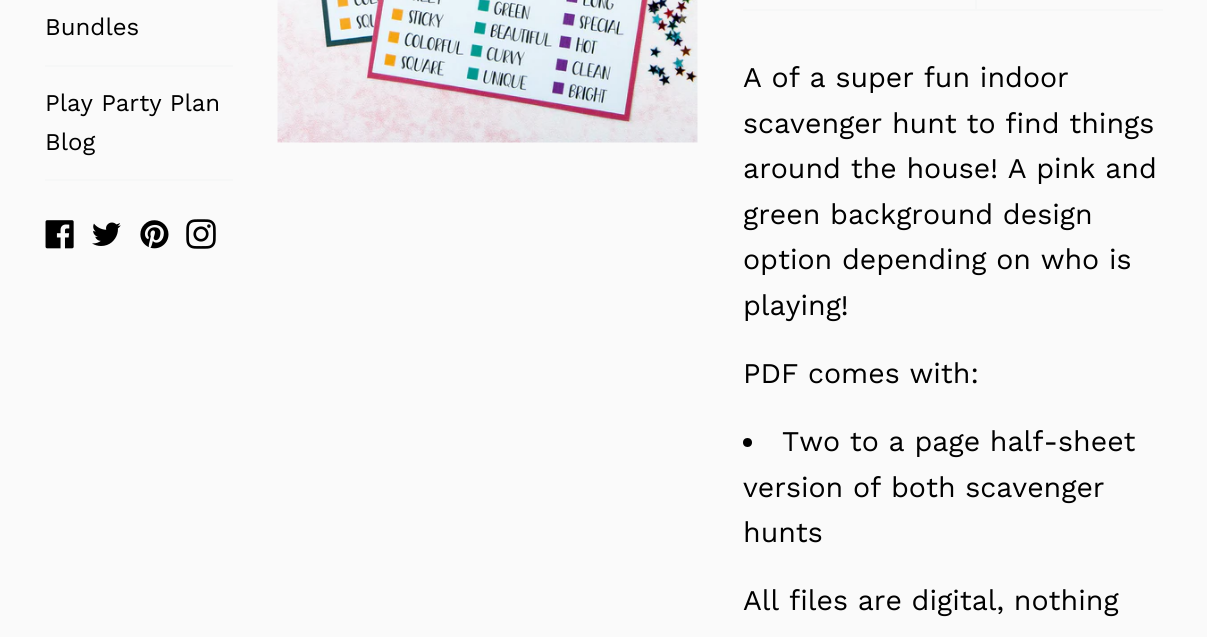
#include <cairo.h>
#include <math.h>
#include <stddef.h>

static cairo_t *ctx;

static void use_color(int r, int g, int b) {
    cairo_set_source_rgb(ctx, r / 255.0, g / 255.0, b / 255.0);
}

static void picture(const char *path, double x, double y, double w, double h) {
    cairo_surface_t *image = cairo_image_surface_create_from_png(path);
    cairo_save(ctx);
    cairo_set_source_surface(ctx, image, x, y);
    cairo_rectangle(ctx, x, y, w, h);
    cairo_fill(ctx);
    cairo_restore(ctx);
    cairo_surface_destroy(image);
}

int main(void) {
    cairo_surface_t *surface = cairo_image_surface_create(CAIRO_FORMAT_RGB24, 1207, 637);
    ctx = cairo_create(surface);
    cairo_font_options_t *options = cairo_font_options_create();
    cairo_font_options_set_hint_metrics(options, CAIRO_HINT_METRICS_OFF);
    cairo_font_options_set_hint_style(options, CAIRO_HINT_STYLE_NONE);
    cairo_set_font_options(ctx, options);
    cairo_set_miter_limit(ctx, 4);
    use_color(250, 250, 250);
    cairo_paint(ctx);
    use_color(246, 247, 247);
    cairo_rectangle(ctx, 45, 65, 188, 2);
    cairo_fill(ctx);
    cairo_select_font_face(ctx, "Work Sans", CAIRO_FONT_SLANT_NORMAL, CAIRO_FONT_WEIGHT_NORMAL);
    cairo_set_font_size(ctx, 24);
    use_color(0, 0, 0);
    cairo_move_to(ctx, 45, 35);
    cairo_show_text(ctx, "Bundles");
    use_color(246, 247, 247);
    cairo_rectangle(ctx, 45, 179, 188, 2);
    cairo_fill(ctx);
    use_color(0, 0, 0);
    cairo_move_to(ctx, 45, 111);
    cairo_show_text(ctx, "Play Party Plan");
    cairo_move_to(ctx, 45, 150);
    cairo_show_text(ctx, "Blog");
    picture("img1.png", 45, 220, 29, 29);
    picture("img2.png", 92, 222, 29, 24);
    picture("img3.png", 140, 220, 29, 29);
    picture("img4.png", 186, 219, 30, 30);
    picture("img5.png", 277, 0, 421, 143);
    use_color(246, 247, 247);
    cairo_rectangle(ctx, 743, 9, 420, 2);
    cairo_fill(ctx);
    cairo_rectangle(ctx, 975, 0, 2, 9);
    cairo_fill(ctx);
    cairo_set_font_size(ctx, 28.5);
    use_color(0, 0, 0);
    cairo_move_to(ctx, 743, 87);
    cairo_show_text(ctx, "A of a super fun indoor");
    cairo_move_to(ctx, 743, 133);
    cairo_show_text(ctx, "scavenger hunt to find things");
    cairo_move_to(ctx, 743, 178);
    cairo_show_text(ctx, "around the house! A pink and");
    cairo_move_to(ctx, 743, 224);
    cairo_show_text(ctx, "green background design");
    cairo_move_to(ctx, 743, 269);
    cairo_show_text(ctx, "option depending on who is");
    cairo_move_to(ctx, 743, 315);
    cairo_show_text(ctx, "playing!");
    cairo_move_to(ctx, 743, 383);
    cairo_show_text(ctx, "PDF comes with:");
    cairo_new_path(ctx);
    cairo_arc(ctx, 747.5, 442.5, 4.5, 0, 2 * M_PI);
    cairo_fill(ctx);
    cairo_move_to(ctx, 782, 451);
    cairo_show_text(ctx, "Two to a page half-sheet");
    cairo_move_to(ctx, 743, 497);
    cairo_show_text(ctx, "version of both scavenger");
    cairo_move_to(ctx, 743, 542);
    cairo_show_text(ctx, "hunts");
    cairo_move_to(ctx, 743, 610);
    cairo_show_text(ctx, "All files are digital, nothing");
    cairo_surface_write_to_png(surface, "result.png");
    cairo_font_options_destroy(options);
    cairo_destroy(ctx);
    cairo_surface_destroy(surface);
    return 0;
}
